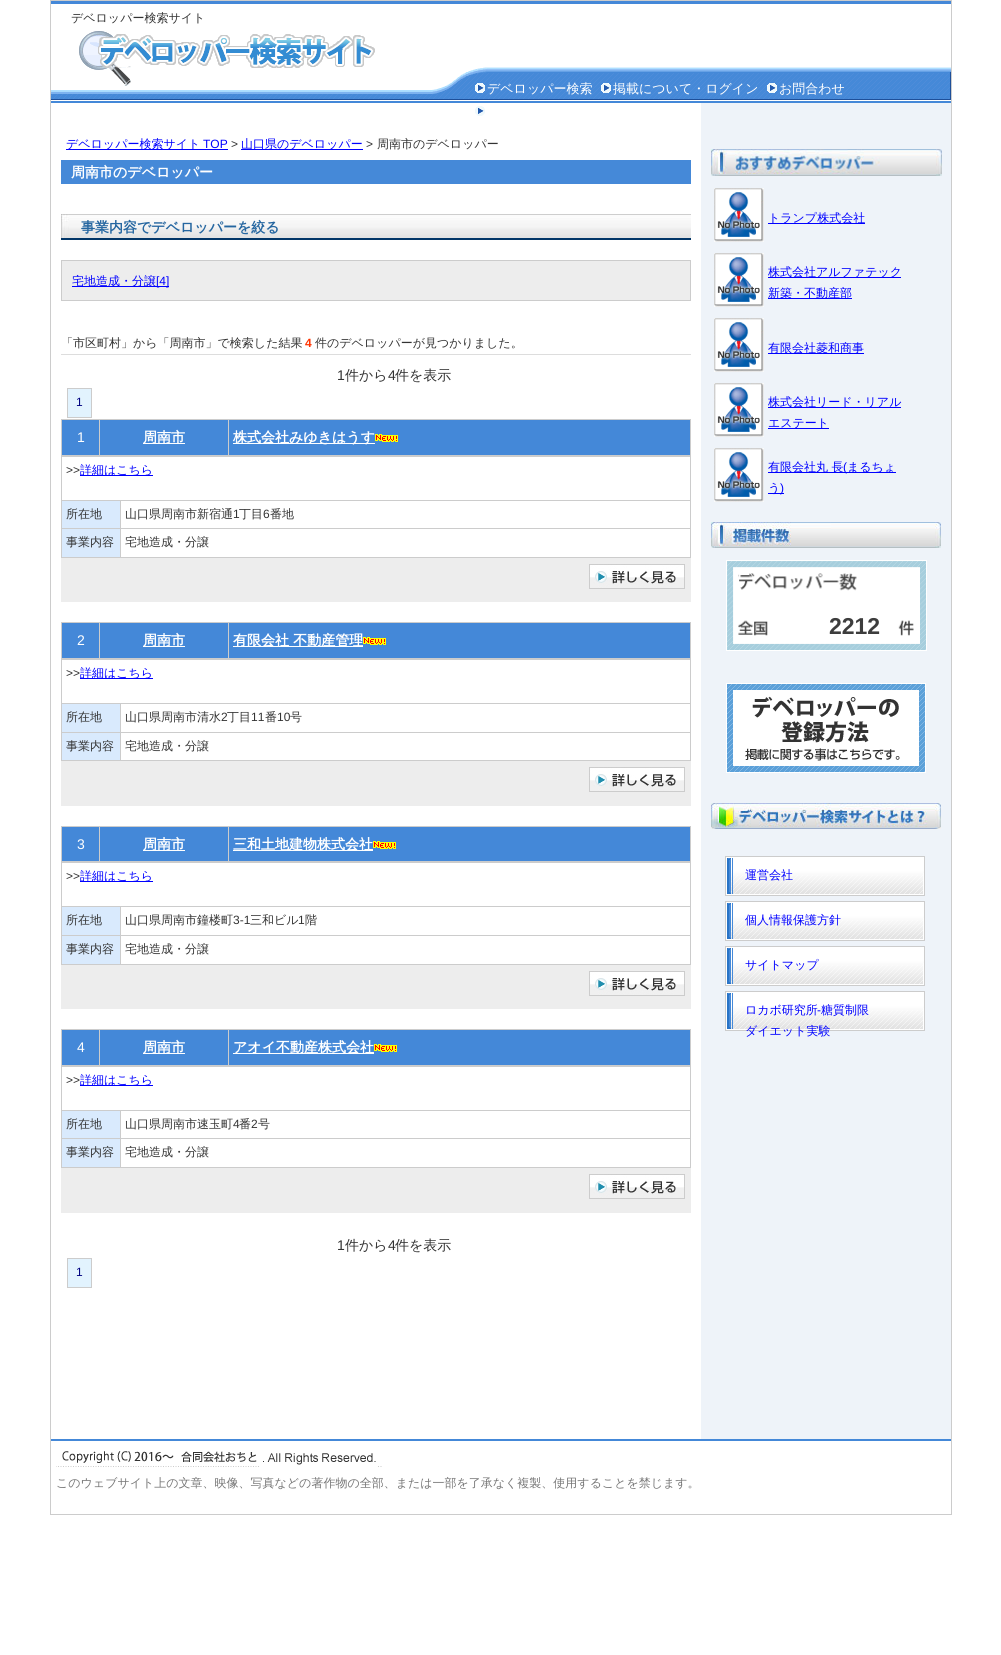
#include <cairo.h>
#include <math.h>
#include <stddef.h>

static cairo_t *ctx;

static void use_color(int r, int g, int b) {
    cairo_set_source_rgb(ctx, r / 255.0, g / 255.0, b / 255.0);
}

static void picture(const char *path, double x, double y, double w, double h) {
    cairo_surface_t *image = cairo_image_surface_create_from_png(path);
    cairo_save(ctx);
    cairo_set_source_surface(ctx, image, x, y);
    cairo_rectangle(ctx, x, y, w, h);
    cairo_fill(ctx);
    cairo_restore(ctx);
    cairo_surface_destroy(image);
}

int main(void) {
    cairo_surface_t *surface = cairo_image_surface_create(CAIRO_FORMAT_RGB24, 1001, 1655);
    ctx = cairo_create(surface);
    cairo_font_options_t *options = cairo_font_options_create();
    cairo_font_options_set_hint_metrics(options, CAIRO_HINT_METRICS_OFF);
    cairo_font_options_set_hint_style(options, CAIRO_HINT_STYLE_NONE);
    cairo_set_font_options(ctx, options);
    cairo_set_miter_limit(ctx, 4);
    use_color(255, 255, 255);
    cairo_paint(ctx);
    cairo_rectangle(ctx, 50.5, 0.5, 901, 1514);
    use_color(204, 204, 204);
    cairo_set_line_width(ctx, 1);
    cairo_stroke(ctx);
    picture("img1.png", 51, 67, 900, 33);
    use_color(68, 136, 216);
    cairo_rectangle(ctx, 51, 1, 900, 3);
    cairo_fill(ctx);
    cairo_rectangle(ctx, 51, 101, 900, 2);
    cairo_fill(ctx);
    cairo_select_font_face(ctx, "WenQuanYi Zen Hei Medium", CAIRO_FONT_SLANT_NORMAL, CAIRO_FONT_WEIGHT_NORMAL);
    cairo_set_font_size(ctx, 12);
    use_color(51, 51, 51);
    cairo_move_to(ctx, 71, 22);
    cairo_show_text(ctx, "デベロッパー検索サイト");
    picture("img2.png", 79, 31, 296, 55);
    picture("img3.png", 475, 83, 10, 10);
    cairo_set_font_size(ctx, 13);
    use_color(255, 255, 255);
    cairo_move_to(ctx, 487, 93);
    cairo_show_text(ctx, "デベロッパー検索");
    picture("img4.png", 601, 83, 10, 10);
    cairo_move_to(ctx, 613, 93);
    cairo_show_text(ctx, "掲載について・ログイン");
    picture("img5.png", 767, 83, 10, 10);
    cairo_move_to(ctx, 779, 93);
    cairo_show_text(ctx, "お問合わせ");
    picture("img6.png", 475, 106, 10, 10);
    use_color(238, 243, 249);
    cairo_rectangle(ctx, 701, 103, 250, 1336);
    cairo_fill(ctx);
    use_color(0, 0, 255);
    cairo_rectangle(ctx, 66, 149, 162, 1);
    cairo_fill(ctx);
    cairo_set_font_size(ctx, 12);
    cairo_move_to(ctx, 66, 148);
    cairo_show_text(ctx, "デベロッパー検索サイト");
    cairo_select_font_face(ctx, "Liberation Sans", CAIRO_FONT_SLANT_NORMAL, CAIRO_FONT_WEIGHT_NORMAL);
    cairo_move_to(ctx, 203, 148);
    cairo_show_text(ctx, "TOP");
    use_color(51, 51, 51);
    cairo_move_to(ctx, 231, 148);
    cairo_show_text(ctx, ">");
    use_color(0, 0, 255);
    cairo_rectangle(ctx, 241, 149, 122, 1);
    cairo_fill(ctx);
    cairo_select_font_face(ctx, "WenQuanYi Zen Hei Medium", CAIRO_FONT_SLANT_NORMAL, CAIRO_FONT_WEIGHT_NORMAL);
    cairo_move_to(ctx, 241, 148);
    cairo_show_text(ctx, "山口県のデベロッパー");
    cairo_select_font_face(ctx, "Liberation Sans", CAIRO_FONT_SLANT_NORMAL, CAIRO_FONT_WEIGHT_NORMAL);
    use_color(51, 51, 51);
    cairo_move_to(ctx, 366, 148);
    cairo_show_text(ctx, ">");
    cairo_select_font_face(ctx, "WenQuanYi Zen Hei Medium", CAIRO_FONT_SLANT_NORMAL, CAIRO_FONT_WEIGHT_NORMAL);
    cairo_move_to(ctx, 377, 148);
    cairo_show_text(ctx, "周南市のデベロッパー");
    use_color(69, 137, 216);
    cairo_rectangle(ctx, 61, 160, 630, 24);
    cairo_fill(ctx);
    cairo_select_font_face(ctx, "WenQuanYi Zen Hei", CAIRO_FONT_SLANT_NORMAL, CAIRO_FONT_WEIGHT_BOLD);
    cairo_set_font_size(ctx, 14);
    use_color(255, 255, 255);
    cairo_move_to(ctx, 71, 177);
    cairo_show_text(ctx, "周南市のデベロッパー");
    picture("img7.png", 61, 214, 630, 26);
    use_color(37, 102, 160);
    cairo_move_to(ctx, 81, 232);
    cairo_show_text(ctx, "事業内容でデベロッパーを絞る");
    use_color(237, 237, 237);
    cairo_rectangle(ctx, 61.5, 260.5, 629, 40);
    cairo_fill_preserve(ctx);
    use_color(204, 204, 204);
    cairo_stroke(ctx);
    use_color(0, 0, 255);
    cairo_rectangle(ctx, 72, 286, 97, 1);
    cairo_fill(ctx);
    cairo_select_font_face(ctx, "WenQuanYi Zen Hei Medium", CAIRO_FONT_SLANT_NORMAL, CAIRO_FONT_WEIGHT_NORMAL);
    cairo_set_font_size(ctx, 12);
    cairo_move_to(ctx, 72, 285);
    cairo_show_text(ctx, "宅地造成・分譲");
    cairo_select_font_face(ctx, "Liberation Sans", CAIRO_FONT_SLANT_NORMAL, CAIRO_FONT_WEIGHT_NORMAL);
    cairo_move_to(ctx, 156, 285);
    cairo_show_text(ctx, "[4]");
    use_color(221, 221, 221);
    cairo_rectangle(ctx, 61, 354, 630, 1);
    cairo_fill(ctx);
    cairo_select_font_face(ctx, "WenQuanYi Zen Hei Medium", CAIRO_FONT_SLANT_NORMAL, CAIRO_FONT_WEIGHT_NORMAL);
    use_color(51, 51, 51);
    cairo_move_to(ctx, 61, 347);
    cairo_show_text(ctx, "「市区町村」から「周南市」で検索した結果");
    cairo_select_font_face(ctx, "Liberation Sans", CAIRO_FONT_SLANT_NORMAL, CAIRO_FONT_WEIGHT_BOLD);
    use_color(255, 51, 0);
    cairo_move_to(ctx, 305, 347);
    cairo_show_text(ctx, "4");
    cairo_select_font_face(ctx, "WenQuanYi Zen Hei Medium", CAIRO_FONT_SLANT_NORMAL, CAIRO_FONT_WEIGHT_NORMAL);
    use_color(51, 51, 51);
    cairo_move_to(ctx, 315, 347);
    cairo_show_text(ctx, "件のデベロッパーが見つかりました。");
    cairo_select_font_face(ctx, "Liberation Sans", CAIRO_FONT_SLANT_NORMAL, CAIRO_FONT_WEIGHT_NORMAL);
    cairo_set_font_size(ctx, 14);
    cairo_move_to(ctx, 337, 380);
    cairo_show_text(ctx, "1");
    cairo_select_font_face(ctx, "WenQuanYi Zen Hei Medium", CAIRO_FONT_SLANT_NORMAL, CAIRO_FONT_WEIGHT_NORMAL);
    cairo_move_to(ctx, 345, 380);
    cairo_show_text(ctx, "件から");
    cairo_select_font_face(ctx, "Liberation Sans", CAIRO_FONT_SLANT_NORMAL, CAIRO_FONT_WEIGHT_NORMAL);
    cairo_move_to(ctx, 388, 380);
    cairo_show_text(ctx, "4");
    cairo_select_font_face(ctx, "WenQuanYi Zen Hei Medium", CAIRO_FONT_SLANT_NORMAL, CAIRO_FONT_WEIGHT_NORMAL);
    cairo_move_to(ctx, 395, 380);
    cairo_show_text(ctx, "件を表示");
    use_color(226, 243, 254);
    cairo_rectangle(ctx, 67.5, 388.5, 24, 29);
    cairo_fill_preserve(ctx);
    use_color(204, 204, 204);
    cairo_stroke(ctx);
    cairo_select_font_face(ctx, "Liberation Sans", CAIRO_FONT_SLANT_NORMAL, CAIRO_FONT_WEIGHT_NORMAL);
    cairo_set_font_size(ctx, 12);
    use_color(0, 0, 128);
    cairo_move_to(ctx, 76, 406);
    cairo_show_text(ctx, "1");
    use_color(68, 136, 216);
    cairo_rectangle(ctx, 62, 420, 628, 35);
    cairo_fill(ctx);
    use_color(204, 204, 204);
    cairo_rectangle(ctx, 228, 419, 463, 1);
    cairo_fill(ctx);
    cairo_rectangle(ctx, 690, 419, 1, 37);
    cairo_fill(ctx);
    cairo_rectangle(ctx, 228, 455, 463, 1);
    cairo_fill(ctx);
    cairo_rectangle(ctx, 228, 419, 1, 37);
    cairo_fill(ctx);
    cairo_rectangle(ctx, 99, 419, 130, 1);
    cairo_fill(ctx);
    cairo_rectangle(ctx, 99, 455, 130, 1);
    cairo_fill(ctx);
    cairo_rectangle(ctx, 99, 419, 1, 37);
    cairo_fill(ctx);
    cairo_rectangle(ctx, 61, 419, 39, 1);
    cairo_fill(ctx);
    cairo_rectangle(ctx, 61, 455, 39, 1);
    cairo_fill(ctx);
    cairo_rectangle(ctx, 61, 419, 1, 37);
    cairo_fill(ctx);
    cairo_set_font_size(ctx, 14);
    use_color(255, 255, 255);
    cairo_move_to(ctx, 77, 442);
    cairo_show_text(ctx, "1");
    cairo_rectangle(ctx, 143, 443, 42, 1);
    cairo_fill(ctx);
    cairo_select_font_face(ctx, "WenQuanYi Zen Hei", CAIRO_FONT_SLANT_NORMAL, CAIRO_FONT_WEIGHT_BOLD);
    cairo_move_to(ctx, 143, 442);
    cairo_show_text(ctx, "周南市");
    cairo_rectangle(ctx, 233, 443, 142, 1);
    cairo_fill(ctx);
    cairo_move_to(ctx, 233, 442);
    cairo_show_text(ctx, "株式会社みゆきはうす");
    picture("img8.png", 375, 434, 23, 8);
    use_color(204, 204, 204);
    cairo_rectangle(ctx, 61, 456, 630, 1);
    cairo_fill(ctx);
    cairo_rectangle(ctx, 120, 500, 571, 1);
    cairo_fill(ctx);
    cairo_rectangle(ctx, 120, 528, 571, 1);
    cairo_fill(ctx);
    cairo_rectangle(ctx, 690, 528, 1, 30);
    cairo_fill(ctx);
    cairo_rectangle(ctx, 690, 500, 1, 29);
    cairo_fill(ctx);
    cairo_rectangle(ctx, 690, 456, 1, 45);
    cairo_fill(ctx);
    cairo_rectangle(ctx, 120, 557, 571, 1);
    cairo_fill(ctx);
    cairo_rectangle(ctx, 120, 528, 1, 30);
    cairo_fill(ctx);
    cairo_rectangle(ctx, 61, 528, 60, 1);
    cairo_fill(ctx);
    cairo_rectangle(ctx, 120, 500, 1, 29);
    cairo_fill(ctx);
    cairo_rectangle(ctx, 61, 500, 60, 1);
    cairo_fill(ctx);
    cairo_rectangle(ctx, 61, 557, 60, 1);
    cairo_fill(ctx);
    cairo_rectangle(ctx, 61, 528, 1, 30);
    cairo_fill(ctx);
    cairo_rectangle(ctx, 61, 500, 1, 29);
    cairo_fill(ctx);
    cairo_rectangle(ctx, 61, 456, 1, 45);
    cairo_fill(ctx);
    cairo_select_font_face(ctx, "Liberation Sans", CAIRO_FONT_SLANT_NORMAL, CAIRO_FONT_WEIGHT_NORMAL);
    cairo_set_font_size(ctx, 12);
    use_color(51, 51, 51);
    cairo_move_to(ctx, 66, 474);
    cairo_show_text(ctx, ">>");
    use_color(0, 0, 255);
    cairo_rectangle(ctx, 80, 475, 73, 1);
    cairo_fill(ctx);
    cairo_select_font_face(ctx, "WenQuanYi Zen Hei Medium", CAIRO_FONT_SLANT_NORMAL, CAIRO_FONT_WEIGHT_NORMAL);
    cairo_move_to(ctx, 80, 474);
    cairo_show_text(ctx, "詳細はこちら");
    use_color(217, 234, 253);
    cairo_rectangle(ctx, 62, 501, 58, 27);
    cairo_fill(ctx);
    use_color(51, 51, 51);
    cairo_move_to(ctx, 66, 518);
    cairo_show_text(ctx, "所在地");
    cairo_move_to(ctx, 125, 518);
    cairo_show_text(ctx, "山口県周南市新宿通");
    cairo_select_font_face(ctx, "Liberation Sans", CAIRO_FONT_SLANT_NORMAL, CAIRO_FONT_WEIGHT_NORMAL);
    cairo_move_to(ctx, 233, 518);
    cairo_show_text(ctx, "1");
    cairo_select_font_face(ctx, "WenQuanYi Zen Hei Medium", CAIRO_FONT_SLANT_NORMAL, CAIRO_FONT_WEIGHT_NORMAL);
    cairo_move_to(ctx, 239, 518);
    cairo_show_text(ctx, "丁目");
    cairo_select_font_face(ctx, "Liberation Sans", CAIRO_FONT_SLANT_NORMAL, CAIRO_FONT_WEIGHT_NORMAL);
    cairo_move_to(ctx, 263, 518);
    cairo_show_text(ctx, "6");
    cairo_select_font_face(ctx, "WenQuanYi Zen Hei Medium", CAIRO_FONT_SLANT_NORMAL, CAIRO_FONT_WEIGHT_NORMAL);
    cairo_move_to(ctx, 270, 518);
    cairo_show_text(ctx, "番地");
    use_color(217, 234, 253);
    cairo_rectangle(ctx, 62, 529, 58, 28);
    cairo_fill(ctx);
    use_color(51, 51, 51);
    cairo_move_to(ctx, 66, 546);
    cairo_show_text(ctx, "事業内容");
    cairo_move_to(ctx, 125, 546);
    cairo_show_text(ctx, "宅地造成・分譲");
    use_color(237, 237, 237);
    cairo_rectangle(ctx, 61, 558, 630, 44);
    cairo_fill(ctx);
    picture("img9.png", 589, 564, 96, 25);
    use_color(68, 136, 216);
    cairo_rectangle(ctx, 62, 623, 628, 35);
    cairo_fill(ctx);
    use_color(204, 204, 204);
    cairo_rectangle(ctx, 228, 622, 463, 1);
    cairo_fill(ctx);
    cairo_rectangle(ctx, 690, 622, 1, 37);
    cairo_fill(ctx);
    cairo_rectangle(ctx, 228, 658, 463, 1);
    cairo_fill(ctx);
    cairo_rectangle(ctx, 228, 622, 1, 37);
    cairo_fill(ctx);
    cairo_rectangle(ctx, 99, 622, 130, 1);
    cairo_fill(ctx);
    cairo_rectangle(ctx, 99, 658, 130, 1);
    cairo_fill(ctx);
    cairo_rectangle(ctx, 99, 622, 1, 37);
    cairo_fill(ctx);
    cairo_rectangle(ctx, 61, 622, 39, 1);
    cairo_fill(ctx);
    cairo_rectangle(ctx, 61, 658, 39, 1);
    cairo_fill(ctx);
    cairo_rectangle(ctx, 61, 622, 1, 37);
    cairo_fill(ctx);
    cairo_select_font_face(ctx, "Liberation Sans", CAIRO_FONT_SLANT_NORMAL, CAIRO_FONT_WEIGHT_NORMAL);
    cairo_set_font_size(ctx, 14);
    use_color(255, 255, 255);
    cairo_move_to(ctx, 77, 645);
    cairo_show_text(ctx, "2");
    cairo_rectangle(ctx, 143, 646, 42, 1);
    cairo_fill(ctx);
    cairo_select_font_face(ctx, "WenQuanYi Zen Hei", CAIRO_FONT_SLANT_NORMAL, CAIRO_FONT_WEIGHT_BOLD);
    cairo_move_to(ctx, 143, 645);
    cairo_show_text(ctx, "周南市");
    cairo_rectangle(ctx, 233, 646, 130, 1);
    cairo_fill(ctx);
    cairo_move_to(ctx, 233, 645);
    cairo_show_text(ctx, "有限会社 不動産管理");
    picture("img8.png", 363, 637, 23, 8);
    use_color(204, 204, 204);
    cairo_rectangle(ctx, 61, 659, 630, 1);
    cairo_fill(ctx);
    cairo_rectangle(ctx, 120, 703, 571, 1);
    cairo_fill(ctx);
    cairo_rectangle(ctx, 120, 732, 571, 1);
    cairo_fill(ctx);
    cairo_rectangle(ctx, 690, 732, 1, 29);
    cairo_fill(ctx);
    cairo_rectangle(ctx, 690, 703, 1, 30);
    cairo_fill(ctx);
    cairo_rectangle(ctx, 690, 659, 1, 45);
    cairo_fill(ctx);
    cairo_rectangle(ctx, 120, 760, 571, 1);
    cairo_fill(ctx);
    cairo_rectangle(ctx, 120, 732, 1, 29);
    cairo_fill(ctx);
    cairo_rectangle(ctx, 61, 732, 60, 1);
    cairo_fill(ctx);
    cairo_rectangle(ctx, 120, 703, 1, 30);
    cairo_fill(ctx);
    cairo_rectangle(ctx, 61, 703, 60, 1);
    cairo_fill(ctx);
    cairo_rectangle(ctx, 61, 760, 60, 1);
    cairo_fill(ctx);
    cairo_rectangle(ctx, 61, 732, 1, 29);
    cairo_fill(ctx);
    cairo_rectangle(ctx, 61, 703, 1, 30);
    cairo_fill(ctx);
    cairo_rectangle(ctx, 61, 659, 1, 45);
    cairo_fill(ctx);
    cairo_select_font_face(ctx, "Liberation Sans", CAIRO_FONT_SLANT_NORMAL, CAIRO_FONT_WEIGHT_NORMAL);
    cairo_set_font_size(ctx, 12);
    use_color(51, 51, 51);
    cairo_move_to(ctx, 66, 677);
    cairo_show_text(ctx, ">>");
    use_color(0, 0, 255);
    cairo_rectangle(ctx, 80, 678, 73, 1);
    cairo_fill(ctx);
    cairo_select_font_face(ctx, "WenQuanYi Zen Hei Medium", CAIRO_FONT_SLANT_NORMAL, CAIRO_FONT_WEIGHT_NORMAL);
    cairo_move_to(ctx, 80, 677);
    cairo_show_text(ctx, "詳細はこちら");
    use_color(217, 234, 253);
    cairo_rectangle(ctx, 62, 704, 58, 28);
    cairo_fill(ctx);
    use_color(51, 51, 51);
    cairo_move_to(ctx, 66, 721);
    cairo_show_text(ctx, "所在地");
    cairo_move_to(ctx, 125, 721);
    cairo_show_text(ctx, "山口県周南市清水");
    cairo_select_font_face(ctx, "Liberation Sans", CAIRO_FONT_SLANT_NORMAL, CAIRO_FONT_WEIGHT_NORMAL);
    cairo_move_to(ctx, 221, 721);
    cairo_show_text(ctx, "2");
    cairo_select_font_face(ctx, "WenQuanYi Zen Hei Medium", CAIRO_FONT_SLANT_NORMAL, CAIRO_FONT_WEIGHT_NORMAL);
    cairo_move_to(ctx, 227, 721);
    cairo_show_text(ctx, "丁目");
    cairo_select_font_face(ctx, "Liberation Sans", CAIRO_FONT_SLANT_NORMAL, CAIRO_FONT_WEIGHT_NORMAL);
    cairo_move_to(ctx, 251, 721);
    cairo_show_text(ctx, "11");
    cairo_select_font_face(ctx, "WenQuanYi Zen Hei Medium", CAIRO_FONT_SLANT_NORMAL, CAIRO_FONT_WEIGHT_NORMAL);
    cairo_move_to(ctx, 265, 721);
    cairo_show_text(ctx, "番");
    cairo_select_font_face(ctx, "Liberation Sans", CAIRO_FONT_SLANT_NORMAL, CAIRO_FONT_WEIGHT_NORMAL);
    cairo_move_to(ctx, 277, 721);
    cairo_show_text(ctx, "10");
    cairo_select_font_face(ctx, "WenQuanYi Zen Hei Medium", CAIRO_FONT_SLANT_NORMAL, CAIRO_FONT_WEIGHT_NORMAL);
    cairo_move_to(ctx, 290, 721);
    cairo_show_text(ctx, "号");
    use_color(217, 234, 253);
    cairo_rectangle(ctx, 62, 733, 58, 27);
    cairo_fill(ctx);
    use_color(51, 51, 51);
    cairo_move_to(ctx, 66, 750);
    cairo_show_text(ctx, "事業内容");
    cairo_move_to(ctx, 125, 750);
    cairo_show_text(ctx, "宅地造成・分譲");
    use_color(237, 237, 237);
    cairo_rectangle(ctx, 61, 761, 630, 45);
    cairo_fill(ctx);
    picture("img9.png", 589, 767, 96, 25);
    use_color(68, 136, 216);
    cairo_rectangle(ctx, 62, 827, 628, 34);
    cairo_fill(ctx);
    use_color(204, 204, 204);
    cairo_rectangle(ctx, 228, 826, 463, 1);
    cairo_fill(ctx);
    cairo_rectangle(ctx, 690, 826, 1, 36);
    cairo_fill(ctx);
    cairo_rectangle(ctx, 228, 861, 463, 1);
    cairo_fill(ctx);
    cairo_rectangle(ctx, 228, 826, 1, 36);
    cairo_fill(ctx);
    cairo_rectangle(ctx, 99, 826, 130, 1);
    cairo_fill(ctx);
    cairo_rectangle(ctx, 99, 861, 130, 1);
    cairo_fill(ctx);
    cairo_rectangle(ctx, 99, 826, 1, 36);
    cairo_fill(ctx);
    cairo_rectangle(ctx, 61, 826, 39, 1);
    cairo_fill(ctx);
    cairo_rectangle(ctx, 61, 861, 39, 1);
    cairo_fill(ctx);
    cairo_rectangle(ctx, 61, 826, 1, 36);
    cairo_fill(ctx);
    cairo_select_font_face(ctx, "Liberation Sans", CAIRO_FONT_SLANT_NORMAL, CAIRO_FONT_WEIGHT_NORMAL);
    cairo_set_font_size(ctx, 14);
    use_color(255, 255, 255);
    cairo_move_to(ctx, 77, 849);
    cairo_show_text(ctx, "3");
    cairo_rectangle(ctx, 143, 850, 42, 1);
    cairo_fill(ctx);
    cairo_select_font_face(ctx, "WenQuanYi Zen Hei", CAIRO_FONT_SLANT_NORMAL, CAIRO_FONT_WEIGHT_BOLD);
    cairo_move_to(ctx, 143, 849);
    cairo_show_text(ctx, "周南市");
    cairo_rectangle(ctx, 233, 850, 140, 1);
    cairo_fill(ctx);
    cairo_move_to(ctx, 233, 849);
    cairo_show_text(ctx, "三和土地建物株式会社");
    picture("img8.png", 373, 841, 23, 8);
    use_color(204, 204, 204);
    cairo_rectangle(ctx, 61, 862, 630, 1);
    cairo_fill(ctx);
    cairo_rectangle(ctx, 120, 906, 571, 1);
    cairo_fill(ctx);
    cairo_rectangle(ctx, 120, 935, 571, 1);
    cairo_fill(ctx);
    cairo_rectangle(ctx, 690, 935, 1, 30);
    cairo_fill(ctx);
    cairo_rectangle(ctx, 690, 906, 1, 30);
    cairo_fill(ctx);
    cairo_rectangle(ctx, 690, 862, 1, 45);
    cairo_fill(ctx);
    cairo_rectangle(ctx, 120, 964, 571, 1);
    cairo_fill(ctx);
    cairo_rectangle(ctx, 120, 935, 1, 30);
    cairo_fill(ctx);
    cairo_rectangle(ctx, 61, 935, 60, 1);
    cairo_fill(ctx);
    cairo_rectangle(ctx, 120, 906, 1, 30);
    cairo_fill(ctx);
    cairo_rectangle(ctx, 61, 906, 60, 1);
    cairo_fill(ctx);
    cairo_rectangle(ctx, 61, 964, 60, 1);
    cairo_fill(ctx);
    cairo_rectangle(ctx, 61, 935, 1, 30);
    cairo_fill(ctx);
    cairo_rectangle(ctx, 61, 906, 1, 30);
    cairo_fill(ctx);
    cairo_rectangle(ctx, 61, 862, 1, 45);
    cairo_fill(ctx);
    cairo_select_font_face(ctx, "Liberation Sans", CAIRO_FONT_SLANT_NORMAL, CAIRO_FONT_WEIGHT_NORMAL);
    cairo_set_font_size(ctx, 12);
    use_color(51, 51, 51);
    cairo_move_to(ctx, 66, 880);
    cairo_show_text(ctx, ">>");
    use_color(0, 0, 255);
    cairo_rectangle(ctx, 80, 881, 73, 1);
    cairo_fill(ctx);
    cairo_select_font_face(ctx, "WenQuanYi Zen Hei Medium", CAIRO_FONT_SLANT_NORMAL, CAIRO_FONT_WEIGHT_NORMAL);
    cairo_move_to(ctx, 80, 880);
    cairo_show_text(ctx, "詳細はこちら");
    use_color(217, 234, 253);
    cairo_rectangle(ctx, 62, 907, 58, 28);
    cairo_fill(ctx);
    use_color(51, 51, 51);
    cairo_move_to(ctx, 66, 924);
    cairo_show_text(ctx, "所在地");
    cairo_move_to(ctx, 125, 924);
    cairo_show_text(ctx, "山口県周南市鐘楼町");
    cairo_select_font_face(ctx, "Liberation Sans", CAIRO_FONT_SLANT_NORMAL, CAIRO_FONT_WEIGHT_NORMAL);
    cairo_move_to(ctx, 233, 924);
    cairo_show_text(ctx, "3-1");
    cairo_select_font_face(ctx, "WenQuanYi Zen Hei Medium", CAIRO_FONT_SLANT_NORMAL, CAIRO_FONT_WEIGHT_NORMAL);
    cairo_move_to(ctx, 250, 924);
    cairo_show_text(ctx, "三和ビル");
    cairo_select_font_face(ctx, "Liberation Sans", CAIRO_FONT_SLANT_NORMAL, CAIRO_FONT_WEIGHT_NORMAL);
    cairo_move_to(ctx, 298, 924);
    cairo_show_text(ctx, "1");
    cairo_select_font_face(ctx, "WenQuanYi Zen Hei Medium", CAIRO_FONT_SLANT_NORMAL, CAIRO_FONT_WEIGHT_NORMAL);
    cairo_move_to(ctx, 305, 924);
    cairo_show_text(ctx, "階");
    use_color(217, 234, 253);
    cairo_rectangle(ctx, 62, 936, 58, 28);
    cairo_fill(ctx);
    use_color(51, 51, 51);
    cairo_move_to(ctx, 66, 953);
    cairo_show_text(ctx, "事業内容");
    cairo_move_to(ctx, 125, 953);
    cairo_show_text(ctx, "宅地造成・分譲");
    use_color(237, 237, 237);
    cairo_rectangle(ctx, 61, 965, 630, 44);
    cairo_fill(ctx);
    picture("img9.png", 589, 971, 96, 25);
    use_color(68, 136, 216);
    cairo_rectangle(ctx, 62, 1030, 628, 35);
    cairo_fill(ctx);
    use_color(204, 204, 204);
    cairo_rectangle(ctx, 228, 1029, 463, 1);
    cairo_fill(ctx);
    cairo_rectangle(ctx, 690, 1029, 1, 37);
    cairo_fill(ctx);
    cairo_rectangle(ctx, 228, 1065, 463, 1);
    cairo_fill(ctx);
    cairo_rectangle(ctx, 228, 1029, 1, 37);
    cairo_fill(ctx);
    cairo_rectangle(ctx, 99, 1029, 130, 1);
    cairo_fill(ctx);
    cairo_rectangle(ctx, 99, 1065, 130, 1);
    cairo_fill(ctx);
    cairo_rectangle(ctx, 99, 1029, 1, 37);
    cairo_fill(ctx);
    cairo_rectangle(ctx, 61, 1029, 39, 1);
    cairo_fill(ctx);
    cairo_rectangle(ctx, 61, 1065, 39, 1);
    cairo_fill(ctx);
    cairo_rectangle(ctx, 61, 1029, 1, 37);
    cairo_fill(ctx);
    cairo_select_font_face(ctx, "Liberation Sans", CAIRO_FONT_SLANT_NORMAL, CAIRO_FONT_WEIGHT_NORMAL);
    cairo_set_font_size(ctx, 14);
    use_color(255, 255, 255);
    cairo_move_to(ctx, 77, 1052);
    cairo_show_text(ctx, "4");
    cairo_rectangle(ctx, 143, 1053, 42, 1);
    cairo_fill(ctx);
    cairo_select_font_face(ctx, "WenQuanYi Zen Hei", CAIRO_FONT_SLANT_NORMAL, CAIRO_FONT_WEIGHT_BOLD);
    cairo_move_to(ctx, 143, 1052);
    cairo_show_text(ctx, "周南市");
    cairo_rectangle(ctx, 233, 1053, 141, 1);
    cairo_fill(ctx);
    cairo_move_to(ctx, 233, 1052);
    cairo_show_text(ctx, "アオイ不動産株式会社");
    picture("img8.png", 374, 1044, 23, 8);
    use_color(204, 204, 204);
    cairo_rectangle(ctx, 61, 1066, 630, 1);
    cairo_fill(ctx);
    cairo_rectangle(ctx, 120, 1110, 571, 1);
    cairo_fill(ctx);
    cairo_rectangle(ctx, 120, 1138, 571, 1);
    cairo_fill(ctx);
    cairo_rectangle(ctx, 690, 1138, 1, 30);
    cairo_fill(ctx);
    cairo_rectangle(ctx, 690, 1110, 1, 29);
    cairo_fill(ctx);
    cairo_rectangle(ctx, 690, 1066, 1, 45);
    cairo_fill(ctx);
    cairo_rectangle(ctx, 120, 1167, 571, 1);
    cairo_fill(ctx);
    cairo_rectangle(ctx, 120, 1138, 1, 30);
    cairo_fill(ctx);
    cairo_rectangle(ctx, 61, 1138, 60, 1);
    cairo_fill(ctx);
    cairo_rectangle(ctx, 120, 1110, 1, 29);
    cairo_fill(ctx);
    cairo_rectangle(ctx, 61, 1110, 60, 1);
    cairo_fill(ctx);
    cairo_rectangle(ctx, 61, 1167, 60, 1);
    cairo_fill(ctx);
    cairo_rectangle(ctx, 61, 1138, 1, 30);
    cairo_fill(ctx);
    cairo_rectangle(ctx, 61, 1110, 1, 29);
    cairo_fill(ctx);
    cairo_rectangle(ctx, 61, 1066, 1, 45);
    cairo_fill(ctx);
    cairo_select_font_face(ctx, "Liberation Sans", CAIRO_FONT_SLANT_NORMAL, CAIRO_FONT_WEIGHT_NORMAL);
    cairo_set_font_size(ctx, 12);
    use_color(51, 51, 51);
    cairo_move_to(ctx, 66, 1084);
    cairo_show_text(ctx, ">>");
    use_color(0, 0, 255);
    cairo_rectangle(ctx, 80, 1085, 73, 1);
    cairo_fill(ctx);
    cairo_select_font_face(ctx, "WenQuanYi Zen Hei Medium", CAIRO_FONT_SLANT_NORMAL, CAIRO_FONT_WEIGHT_NORMAL);
    cairo_move_to(ctx, 80, 1084);
    cairo_show_text(ctx, "詳細はこちら");
    use_color(217, 234, 253);
    cairo_rectangle(ctx, 62, 1111, 58, 27);
    cairo_fill(ctx);
    use_color(51, 51, 51);
    cairo_move_to(ctx, 66, 1128);
    cairo_show_text(ctx, "所在地");
    cairo_move_to(ctx, 125, 1128);
    cairo_show_text(ctx, "山口県周南市速玉町");
    cairo_select_font_face(ctx, "Liberation Sans", CAIRO_FONT_SLANT_NORMAL, CAIRO_FONT_WEIGHT_NORMAL);
    cairo_move_to(ctx, 233, 1128);
    cairo_show_text(ctx, "4");
    cairo_select_font_face(ctx, "WenQuanYi Zen Hei Medium", CAIRO_FONT_SLANT_NORMAL, CAIRO_FONT_WEIGHT_NORMAL);
    cairo_move_to(ctx, 239, 1128);
    cairo_show_text(ctx, "番");
    cairo_select_font_face(ctx, "Liberation Sans", CAIRO_FONT_SLANT_NORMAL, CAIRO_FONT_WEIGHT_NORMAL);
    cairo_move_to(ctx, 251, 1128);
    cairo_show_text(ctx, "2");
    cairo_select_font_face(ctx, "WenQuanYi Zen Hei Medium", CAIRO_FONT_SLANT_NORMAL, CAIRO_FONT_WEIGHT_NORMAL);
    cairo_move_to(ctx, 258, 1128);
    cairo_show_text(ctx, "号");
    use_color(217, 234, 253);
    cairo_rectangle(ctx, 62, 1139, 58, 28);
    cairo_fill(ctx);
    use_color(51, 51, 51);
    cairo_move_to(ctx, 66, 1156);
    cairo_show_text(ctx, "事業内容");
    cairo_move_to(ctx, 125, 1156);
    cairo_show_text(ctx, "宅地造成・分譲");
    use_color(237, 237, 237);
    cairo_rectangle(ctx, 61, 1168, 630, 45);
    cairo_fill(ctx);
    picture("img9.png", 589, 1174, 96, 25);
    cairo_select_font_face(ctx, "Liberation Sans", CAIRO_FONT_SLANT_NORMAL, CAIRO_FONT_WEIGHT_NORMAL);
    cairo_set_font_size(ctx, 14);
    use_color(51, 51, 51);
    cairo_move_to(ctx, 337, 1250);
    cairo_show_text(ctx, "1");
    cairo_select_font_face(ctx, "WenQuanYi Zen Hei Medium", CAIRO_FONT_SLANT_NORMAL, CAIRO_FONT_WEIGHT_NORMAL);
    cairo_move_to(ctx, 345, 1250);
    cairo_show_text(ctx, "件から");
    cairo_select_font_face(ctx, "Liberation Sans", CAIRO_FONT_SLANT_NORMAL, CAIRO_FONT_WEIGHT_NORMAL);
    cairo_move_to(ctx, 388, 1250);
    cairo_show_text(ctx, "4");
    cairo_select_font_face(ctx, "WenQuanYi Zen Hei Medium", CAIRO_FONT_SLANT_NORMAL, CAIRO_FONT_WEIGHT_NORMAL);
    cairo_move_to(ctx, 395, 1250);
    cairo_show_text(ctx, "件を表示");
    use_color(226, 243, 254);
    cairo_rectangle(ctx, 67.5, 1258.5, 24, 29);
    cairo_fill_preserve(ctx);
    use_color(204, 204, 204);
    cairo_stroke(ctx);
    cairo_select_font_face(ctx, "Liberation Sans", CAIRO_FONT_SLANT_NORMAL, CAIRO_FONT_WEIGHT_NORMAL);
    cairo_set_font_size(ctx, 12);
    use_color(0, 0, 128);
    cairo_move_to(ctx, 76, 1276);
    cairo_show_text(ctx, "1");
    picture("img10.png", 711, 149, 231, 27);
    picture("img11.png", 714, 188, 50, 54);
    use_color(0, 0, 255);
    cairo_rectangle(ctx, 768, 223, 97, 1);
    cairo_fill(ctx);
    cairo_select_font_face(ctx, "WenQuanYi Zen Hei Medium", CAIRO_FONT_SLANT_NORMAL, CAIRO_FONT_WEIGHT_NORMAL);
    cairo_move_to(ctx, 768, 222);
    cairo_show_text(ctx, "トランプ株式会社");
    picture("img11.png", 714, 253, 50, 54);
    cairo_rectangle(ctx, 768, 277, 133, 1);
    cairo_fill(ctx);
    cairo_move_to(ctx, 768, 276);
    cairo_show_text(ctx, "株式会社アルファテック");
    cairo_rectangle(ctx, 768, 298, 84, 1);
    cairo_fill(ctx);
    cairo_move_to(ctx, 768, 297);
    cairo_show_text(ctx, "新築・不動産部");
    picture("img11.png", 714, 318, 50, 54);
    cairo_rectangle(ctx, 768, 353, 96, 1);
    cairo_fill(ctx);
    cairo_move_to(ctx, 768, 352);
    cairo_show_text(ctx, "有限会社菱和商事");
    picture("img11.png", 714, 383, 50, 54);
    cairo_rectangle(ctx, 768, 407, 133, 1);
    cairo_fill(ctx);
    cairo_move_to(ctx, 768, 406);
    cairo_show_text(ctx, "株式会社リード・リアル");
    cairo_rectangle(ctx, 768, 428, 61, 1);
    cairo_fill(ctx);
    cairo_move_to(ctx, 768, 427);
    cairo_show_text(ctx, "エステート");
    picture("img11.png", 714, 448, 50, 54);
    cairo_rectangle(ctx, 768, 472, 128, 1);
    cairo_fill(ctx);
    cairo_move_to(ctx, 768, 471);
    cairo_show_text(ctx, "有限会社丸 長");
    cairo_select_font_face(ctx, "Liberation Sans", CAIRO_FONT_SLANT_NORMAL, CAIRO_FONT_WEIGHT_NORMAL);
    cairo_move_to(ctx, 843, 471);
    cairo_show_text(ctx, "(");
    cairo_select_font_face(ctx, "WenQuanYi Zen Hei Medium", CAIRO_FONT_SLANT_NORMAL, CAIRO_FONT_WEIGHT_NORMAL);
    cairo_move_to(ctx, 847, 471);
    cairo_show_text(ctx, "まるちょ");
    cairo_rectangle(ctx, 768, 493, 16, 1);
    cairo_fill(ctx);
    cairo_move_to(ctx, 768, 492);
    cairo_show_text(ctx, "う");
    cairo_select_font_face(ctx, "Liberation Sans", CAIRO_FONT_SLANT_NORMAL, CAIRO_FONT_WEIGHT_NORMAL);
    cairo_move_to(ctx, 780, 492);
    cairo_show_text(ctx, ")");
    picture("img12.png", 711, 522, 230, 26);
    picture("img13.png", 726, 560, 201, 91);
    cairo_select_font_face(ctx, "Liberation Sans", CAIRO_FONT_SLANT_NORMAL, CAIRO_FONT_WEIGHT_BOLD);
    cairo_set_font_size(ctx, 23);
    use_color(61, 61, 61);
    cairo_move_to(ctx, 829, 634);
    cairo_show_text(ctx, "2212");
    picture("img14.png", 726, 683, 200, 90);
    picture("img15.png", 711, 803, 230, 26);
    picture("img16.png", 725, 856, 200, 40);
    cairo_select_font_face(ctx, "WenQuanYi Zen Hei Medium", CAIRO_FONT_SLANT_NORMAL, CAIRO_FONT_WEIGHT_NORMAL);
    cairo_set_font_size(ctx, 12);
    use_color(0, 0, 255);
    cairo_move_to(ctx, 745, 879);
    cairo_show_text(ctx, "運営会社");
    picture("img16.png", 725, 901, 200, 40);
    cairo_move_to(ctx, 745, 924);
    cairo_show_text(ctx, "個人情報保護方針");
    picture("img16.png", 725, 946, 200, 40);
    cairo_move_to(ctx, 745, 969);
    cairo_show_text(ctx, "サイトマップ");
    picture("img16.png", 725, 991, 200, 40);
    cairo_move_to(ctx, 745, 1014);
    cairo_show_text(ctx, "ロカボ研究所");
    cairo_select_font_face(ctx, "Liberation Sans", CAIRO_FONT_SLANT_NORMAL, CAIRO_FONT_WEIGHT_NORMAL);
    cairo_move_to(ctx, 817, 1014);
    cairo_show_text(ctx, "-");
    cairo_select_font_face(ctx, "WenQuanYi Zen Hei Medium", CAIRO_FONT_SLANT_NORMAL, CAIRO_FONT_WEIGHT_NORMAL);
    cairo_move_to(ctx, 821, 1014);
    cairo_show_text(ctx, "糖質制限");
    cairo_move_to(ctx, 745, 1035);
    cairo_show_text(ctx, "ダイエット実験");
    use_color(68, 136, 216);
    cairo_rectangle(ctx, 51, 1439, 900, 2);
    cairo_fill(ctx);
    picture("img17.png", 56, 1451, 326, 16);
    use_color(119, 119, 119);
    cairo_move_to(ctx, 56, 1487);
    cairo_show_text(ctx, "このウェブサイト上の文章、映像、写真などの著作物の全部、または一部を了承なく複製、使用することを禁じます。");
    cairo_surface_write_to_png(surface, "result.png");
    cairo_font_options_destroy(options);
    cairo_destroy(ctx);
    cairo_surface_destroy(surface);
    return 0;
}
